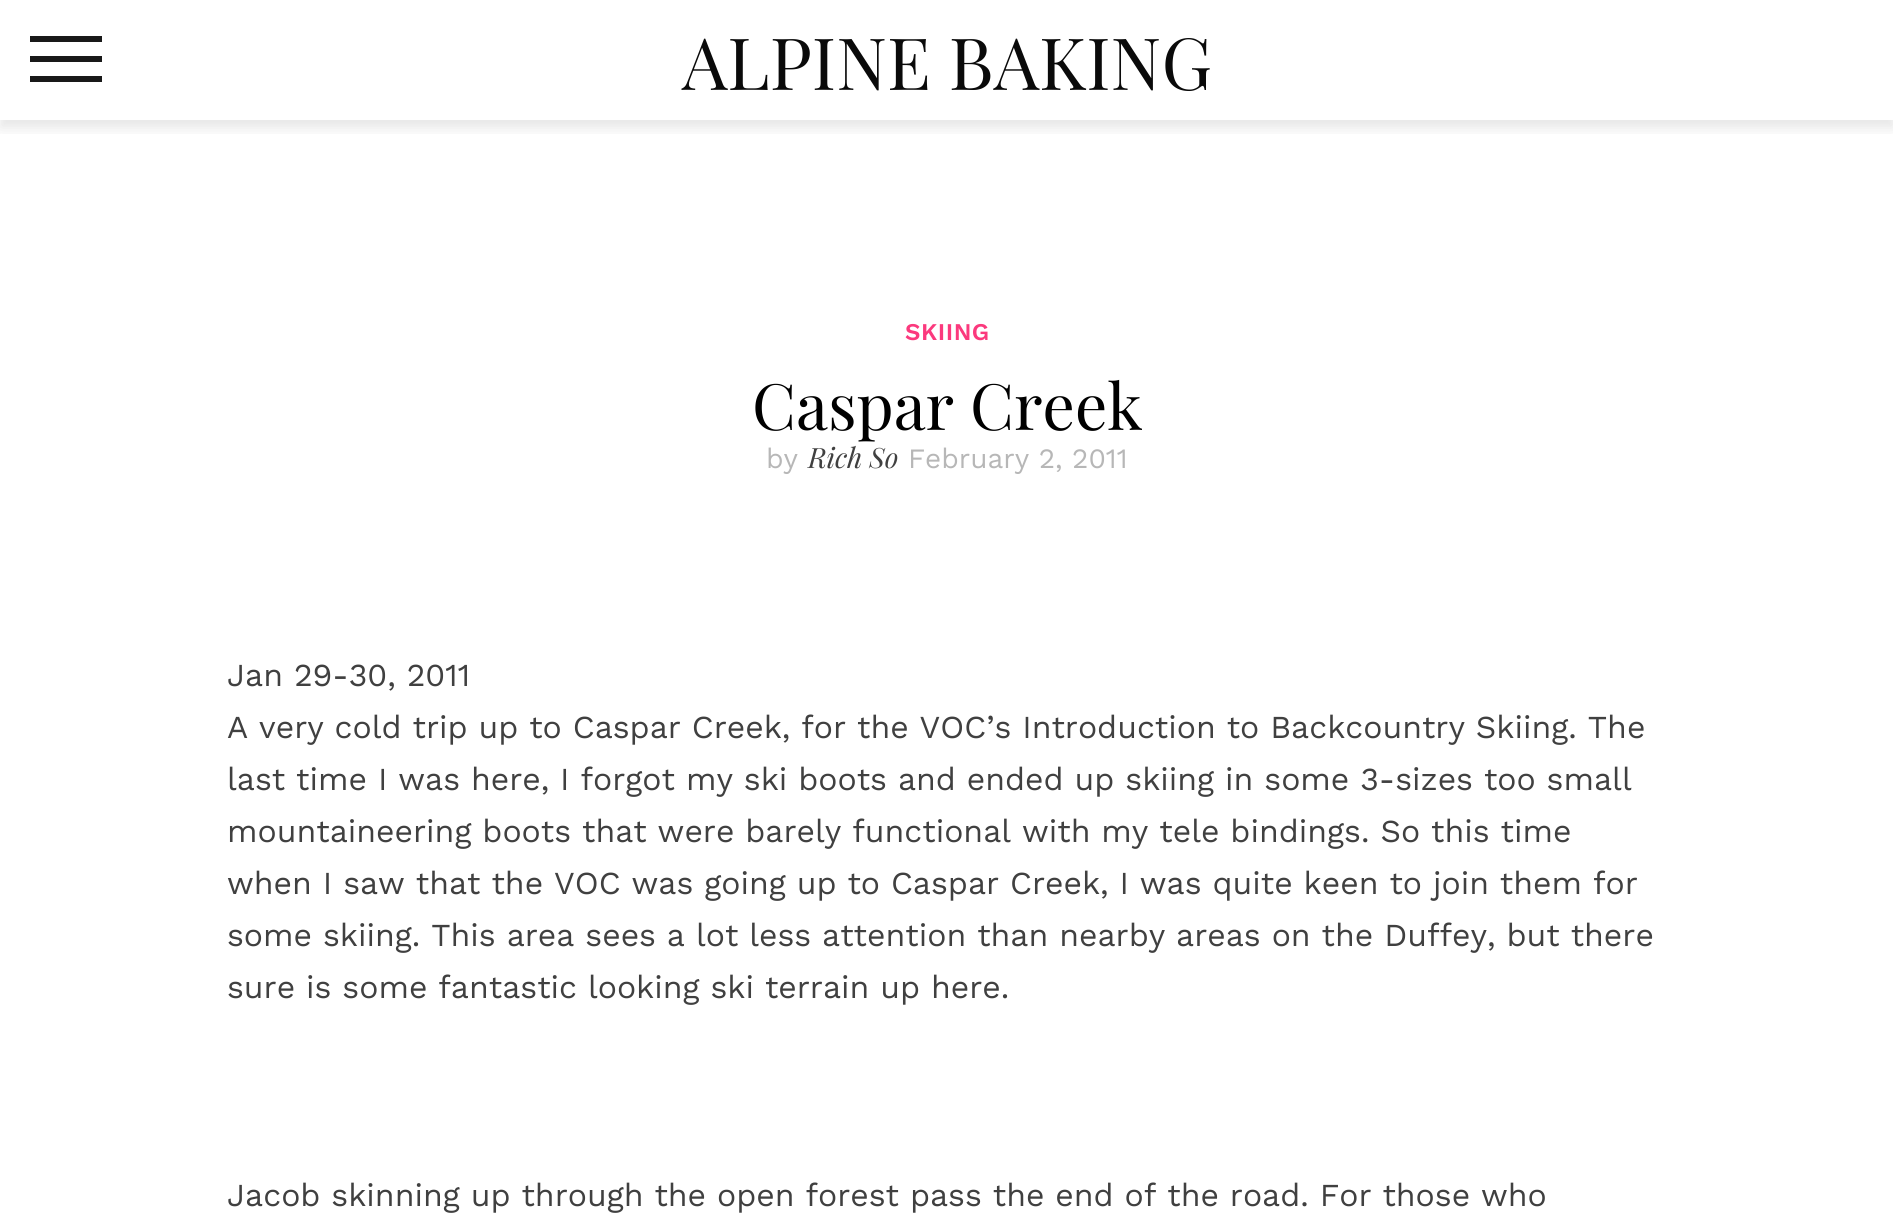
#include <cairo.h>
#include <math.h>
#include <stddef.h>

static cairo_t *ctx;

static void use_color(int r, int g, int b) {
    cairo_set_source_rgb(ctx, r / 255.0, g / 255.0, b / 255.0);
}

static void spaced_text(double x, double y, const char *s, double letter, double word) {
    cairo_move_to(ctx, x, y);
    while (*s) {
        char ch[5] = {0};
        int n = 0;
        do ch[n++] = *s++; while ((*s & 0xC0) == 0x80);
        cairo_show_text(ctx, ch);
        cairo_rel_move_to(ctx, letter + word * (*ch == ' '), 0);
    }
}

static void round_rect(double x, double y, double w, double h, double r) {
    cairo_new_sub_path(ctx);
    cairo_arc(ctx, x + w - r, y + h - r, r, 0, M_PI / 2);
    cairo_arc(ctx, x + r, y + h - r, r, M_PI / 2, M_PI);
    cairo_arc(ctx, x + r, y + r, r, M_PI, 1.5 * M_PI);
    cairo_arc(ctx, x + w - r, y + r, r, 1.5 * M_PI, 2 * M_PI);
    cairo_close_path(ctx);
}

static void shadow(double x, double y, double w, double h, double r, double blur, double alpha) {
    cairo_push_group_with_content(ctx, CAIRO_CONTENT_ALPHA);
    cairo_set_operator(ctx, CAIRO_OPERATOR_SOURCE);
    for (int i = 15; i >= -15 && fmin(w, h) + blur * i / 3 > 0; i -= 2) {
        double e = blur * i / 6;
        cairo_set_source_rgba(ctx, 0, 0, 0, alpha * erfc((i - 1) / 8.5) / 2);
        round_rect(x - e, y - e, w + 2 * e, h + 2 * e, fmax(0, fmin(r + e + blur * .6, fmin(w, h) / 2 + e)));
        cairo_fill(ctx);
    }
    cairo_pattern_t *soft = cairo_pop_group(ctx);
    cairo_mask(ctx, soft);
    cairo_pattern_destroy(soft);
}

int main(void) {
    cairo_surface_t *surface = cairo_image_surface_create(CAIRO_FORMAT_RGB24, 1893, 1213);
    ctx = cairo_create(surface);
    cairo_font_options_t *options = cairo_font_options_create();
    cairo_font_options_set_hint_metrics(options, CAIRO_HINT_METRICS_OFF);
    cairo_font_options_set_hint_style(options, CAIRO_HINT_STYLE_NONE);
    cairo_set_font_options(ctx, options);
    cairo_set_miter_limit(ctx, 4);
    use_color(255, 255, 255);
    cairo_paint(ctx);
    cairo_save(ctx);
    cairo_rectangle(ctx, 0, 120, 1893, 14);
    cairo_clip(ctx);
    use_color(0, 0, 0);
    shadow(0, 8, 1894, 120, 0, 7, 0.1);
    cairo_restore(ctx);
    use_color(25, 25, 25);
    cairo_rectangle(ctx, 30, 56, 72, 6);
    cairo_fill(ctx);
    cairo_rectangle(ctx, 30, 36, 72, 6);
    cairo_fill(ctx);
    cairo_rectangle(ctx, 30, 76, 72, 6);
    cairo_fill(ctx);
    cairo_select_font_face(ctx, "Playfair Display", CAIRO_FONT_SLANT_NORMAL, CAIRO_FONT_WEIGHT_NORMAL);
    cairo_set_font_size(ctx, 72);
    use_color(10, 10, 10);
    cairo_move_to(ctx, 682, 90);
    cairo_show_text(ctx, "ALPINE BAKING");
    cairo_select_font_face(ctx, "Work Sans SemiBold", CAIRO_FONT_SLANT_NORMAL, CAIRO_FONT_WEIGHT_NORMAL);
    cairo_set_font_size(ctx, 24);
    use_color(251, 57, 125);
    spaced_text(905, 340, "SKIING", 0.5, 0);
    cairo_select_font_face(ctx, "Playfair Display", CAIRO_FONT_SLANT_NORMAL, CAIRO_FONT_WEIGHT_NORMAL);
    cairo_set_font_size(ctx, 64);
    use_color(0, 0, 0);
    cairo_move_to(ctx, 752, 430);
    cairo_show_text(ctx, "Caspar Creek");
    cairo_select_font_face(ctx, "Work Sans", CAIRO_FONT_SLANT_NORMAL, CAIRO_FONT_WEIGHT_NORMAL);
    cairo_set_font_size(ctx, 28);
    use_color(183, 183, 183);
    cairo_move_to(ctx, 766, 468);
    cairo_show_text(ctx, "by");
    cairo_select_font_face(ctx, "Playfair Display", CAIRO_FONT_SLANT_ITALIC, CAIRO_FONT_WEIGHT_NORMAL);
    use_color(64, 64, 64);
    cairo_move_to(ctx, 808, 468);
    cairo_show_text(ctx, "Rich So");
    cairo_select_font_face(ctx, "Work Sans", CAIRO_FONT_SLANT_NORMAL, CAIRO_FONT_WEIGHT_NORMAL);
    use_color(183, 183, 183);
    cairo_move_to(ctx, 908, 468);
    cairo_show_text(ctx, "February 2, 2011");
    cairo_set_font_size(ctx, 32);
    use_color(64, 64, 64);
    cairo_move_to(ctx, 227, 686);
    cairo_show_text(ctx, "Jan 29-30, 2011");
    cairo_move_to(ctx, 227, 738);
    cairo_show_text(ctx, "A very cold trip up to Caspar Creek, for the VOC’s Introduction to Backcountry Skiing. The");
    cairo_move_to(ctx, 227, 790);
    cairo_show_text(ctx, "last time I was here, I forgot my ski boots and ended up skiing in some 3-sizes too small");
    cairo_move_to(ctx, 227, 842);
    cairo_show_text(ctx, "mountaineering boots that were barely functional with my tele bindings. So this time");
    cairo_move_to(ctx, 227, 894);
    cairo_show_text(ctx, "when I saw that the VOC was going up to Caspar Creek, I was quite keen to join them for");
    cairo_move_to(ctx, 227, 946);
    cairo_show_text(ctx, "some skiing. This area sees a lot less attention than nearby areas on the Duffey, but there");
    cairo_move_to(ctx, 227, 998);
    cairo_show_text(ctx, "sure is some fantastic looking ski terrain up here.");
    cairo_move_to(ctx, 227, 1206);
    cairo_show_text(ctx, "Jacob skinning up through the open forest pass the end of the road. For those who");
    cairo_surface_write_to_png(surface, "result.png");
    cairo_font_options_destroy(options);
    cairo_destroy(ctx);
    cairo_surface_destroy(surface);
    return 0;
}
